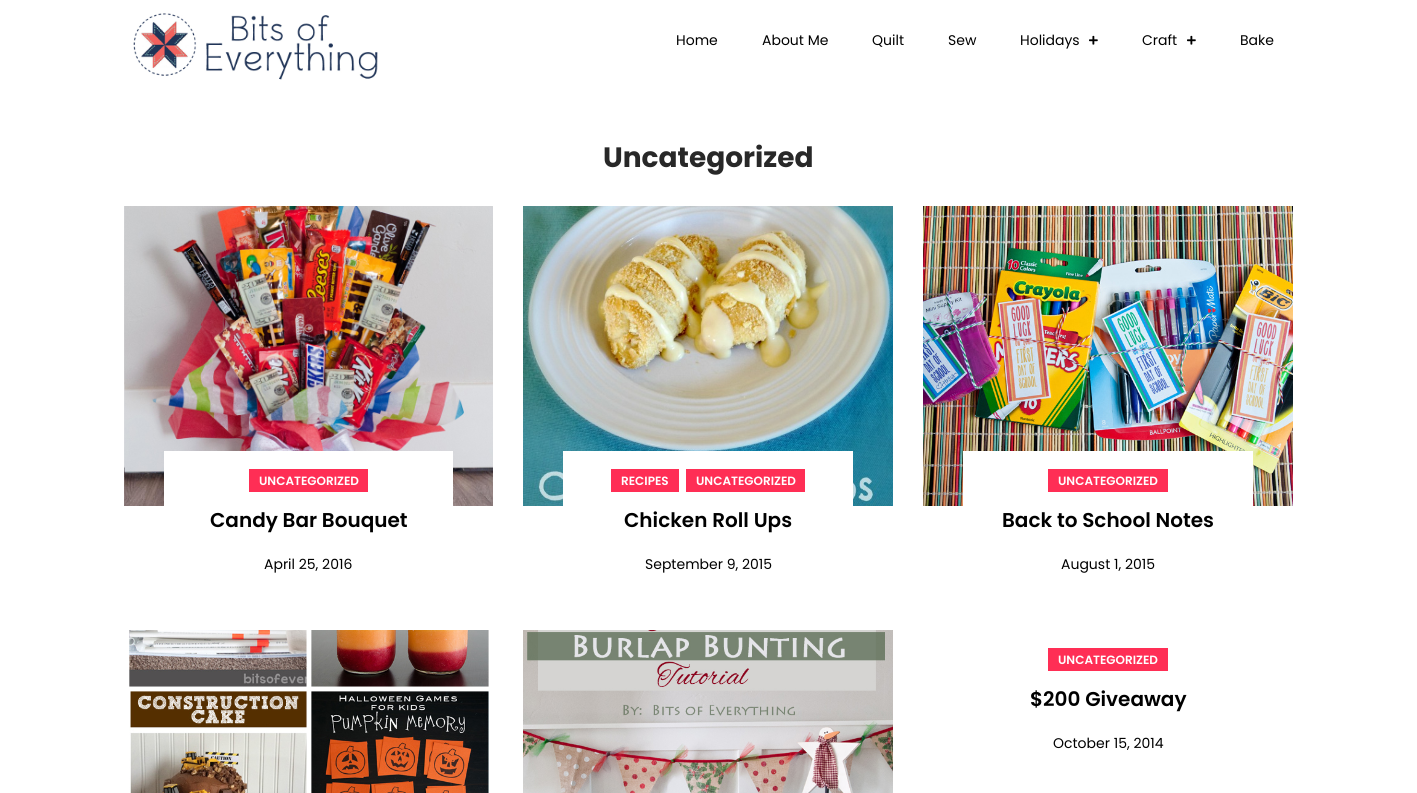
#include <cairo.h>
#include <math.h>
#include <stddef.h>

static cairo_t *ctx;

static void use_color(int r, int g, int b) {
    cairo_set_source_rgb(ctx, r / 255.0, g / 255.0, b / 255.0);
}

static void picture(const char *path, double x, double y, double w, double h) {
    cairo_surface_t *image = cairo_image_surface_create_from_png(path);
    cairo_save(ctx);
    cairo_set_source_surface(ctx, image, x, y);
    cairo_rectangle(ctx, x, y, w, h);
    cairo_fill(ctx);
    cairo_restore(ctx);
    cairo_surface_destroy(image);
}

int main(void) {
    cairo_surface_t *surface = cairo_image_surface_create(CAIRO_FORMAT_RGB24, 1417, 793);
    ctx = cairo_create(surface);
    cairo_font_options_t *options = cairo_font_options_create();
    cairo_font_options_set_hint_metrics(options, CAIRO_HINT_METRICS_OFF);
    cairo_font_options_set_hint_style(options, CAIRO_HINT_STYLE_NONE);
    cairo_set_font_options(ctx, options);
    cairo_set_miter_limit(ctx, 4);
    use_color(255, 255, 255);
    cairo_paint(ctx);
    picture("img1.png", 133, 13, 245, 67);
    cairo_select_font_face(ctx, "Poppins", CAIRO_FONT_SLANT_NORMAL, CAIRO_FONT_WEIGHT_NORMAL);
    cairo_set_font_size(ctx, 14);
    use_color(0, 0, 0);
    cairo_move_to(ctx, 676, 45);
    cairo_show_text(ctx, "Home");
    cairo_move_to(ctx, 762, 45);
    cairo_show_text(ctx, "About Me");
    cairo_move_to(ctx, 872, 45);
    cairo_show_text(ctx, "Quilt");
    cairo_move_to(ctx, 948, 45);
    cairo_show_text(ctx, "Sew");
    cairo_move_to(ctx, 1020, 45);
    cairo_show_text(ctx, "Holidays");
    picture("img2.png", 1089, 35, 9, 10);
    cairo_move_to(ctx, 1142, 45);
    cairo_show_text(ctx, "Craft");
    picture("img2.png", 1187, 35, 9, 10);
    cairo_move_to(ctx, 1240, 45);
    cairo_show_text(ctx, "Bake");
    cairo_select_font_face(ctx, "Poppins", CAIRO_FONT_SLANT_NORMAL, CAIRO_FONT_WEIGHT_BOLD);
    cairo_set_font_size(ctx, 28);
    use_color(40, 40, 40);
    cairo_move_to(ctx, 603, 167);
    cairo_show_text(ctx, "Uncategorized");
    picture("img3.png", 124, 206, 369, 300);
    use_color(255, 255, 255);
    cairo_rectangle(ctx, 164, 451, 289, 55);
    cairo_fill(ctx);
    use_color(255, 46, 85);
    cairo_rectangle(ctx, 249, 469, 119, 23);
    cairo_fill(ctx);
    cairo_select_font_face(ctx, "Poppins SemiBold", CAIRO_FONT_SLANT_NORMAL, CAIRO_FONT_WEIGHT_NORMAL);
    cairo_set_font_size(ctx, 12);
    use_color(255, 255, 255);
    cairo_move_to(ctx, 259, 485);
    cairo_show_text(ctx, "UNCATEGORIZED");
    cairo_set_font_size(ctx, 20);
    use_color(0, 0, 0);
    cairo_move_to(ctx, 210, 527);
    cairo_show_text(ctx, "Candy Bar Bouquet");
    cairo_select_font_face(ctx, "Poppins", CAIRO_FONT_SLANT_NORMAL, CAIRO_FONT_WEIGHT_NORMAL);
    cairo_set_font_size(ctx, 14);
    cairo_move_to(ctx, 264, 569);
    cairo_show_text(ctx, "April 25, 2016");
    picture("img4.png", 523, 206, 370, 300);
    use_color(255, 255, 255);
    cairo_rectangle(ctx, 563, 451, 290, 55);
    cairo_fill(ctx);
    use_color(255, 46, 85);
    cairo_rectangle(ctx, 611, 469, 68, 23);
    cairo_fill(ctx);
    cairo_select_font_face(ctx, "Poppins SemiBold", CAIRO_FONT_SLANT_NORMAL, CAIRO_FONT_WEIGHT_NORMAL);
    cairo_set_font_size(ctx, 12);
    use_color(255, 255, 255);
    cairo_move_to(ctx, 621, 485);
    cairo_show_text(ctx, "RECIPES");
    use_color(255, 46, 85);
    cairo_rectangle(ctx, 686, 469, 119, 23);
    cairo_fill(ctx);
    use_color(255, 255, 255);
    cairo_move_to(ctx, 696, 485);
    cairo_show_text(ctx, "UNCATEGORIZED");
    cairo_set_font_size(ctx, 20);
    use_color(0, 0, 0);
    cairo_move_to(ctx, 624, 527);
    cairo_show_text(ctx, "Chicken Roll Ups");
    cairo_select_font_face(ctx, "Poppins", CAIRO_FONT_SLANT_NORMAL, CAIRO_FONT_WEIGHT_NORMAL);
    cairo_set_font_size(ctx, 14);
    cairo_move_to(ctx, 645, 569);
    cairo_show_text(ctx, "September 9, 2015");
    picture("img5.png", 923, 206, 370, 300);
    use_color(255, 255, 255);
    cairo_rectangle(ctx, 963, 451, 290, 55);
    cairo_fill(ctx);
    use_color(255, 46, 85);
    cairo_rectangle(ctx, 1048, 469, 120, 23);
    cairo_fill(ctx);
    cairo_select_font_face(ctx, "Poppins SemiBold", CAIRO_FONT_SLANT_NORMAL, CAIRO_FONT_WEIGHT_NORMAL);
    cairo_set_font_size(ctx, 12);
    use_color(255, 255, 255);
    cairo_move_to(ctx, 1058, 485);
    cairo_show_text(ctx, "UNCATEGORIZED");
    cairo_set_font_size(ctx, 20);
    use_color(0, 0, 0);
    cairo_move_to(ctx, 1002, 527);
    cairo_show_text(ctx, "Back to School Notes");
    cairo_select_font_face(ctx, "Poppins", CAIRO_FONT_SLANT_NORMAL, CAIRO_FONT_WEIGHT_NORMAL);
    cairo_set_font_size(ctx, 14);
    cairo_move_to(ctx, 1061, 569);
    cairo_show_text(ctx, "August 1, 2015");
    picture("img6.png", 129, 630, 360, 163);
    picture("img7.png", 523, 630, 370, 163);
    use_color(255, 46, 85);
    cairo_rectangle(ctx, 1048, 648, 120, 23);
    cairo_fill(ctx);
    cairo_select_font_face(ctx, "Poppins SemiBold", CAIRO_FONT_SLANT_NORMAL, CAIRO_FONT_WEIGHT_NORMAL);
    cairo_set_font_size(ctx, 12);
    use_color(255, 255, 255);
    cairo_move_to(ctx, 1058, 664);
    cairo_show_text(ctx, "UNCATEGORIZED");
    cairo_set_font_size(ctx, 20);
    use_color(0, 0, 0);
    cairo_move_to(ctx, 1030, 706);
    cairo_show_text(ctx, "$200 Giveaway");
    cairo_select_font_face(ctx, "Poppins", CAIRO_FONT_SLANT_NORMAL, CAIRO_FONT_WEIGHT_NORMAL);
    cairo_set_font_size(ctx, 14);
    cairo_move_to(ctx, 1053, 748);
    cairo_show_text(ctx, "October 15, 2014");
    cairo_surface_write_to_png(surface, "result.png");
    cairo_font_options_destroy(options);
    cairo_destroy(ctx);
    cairo_surface_destroy(surface);
    return 0;
}
